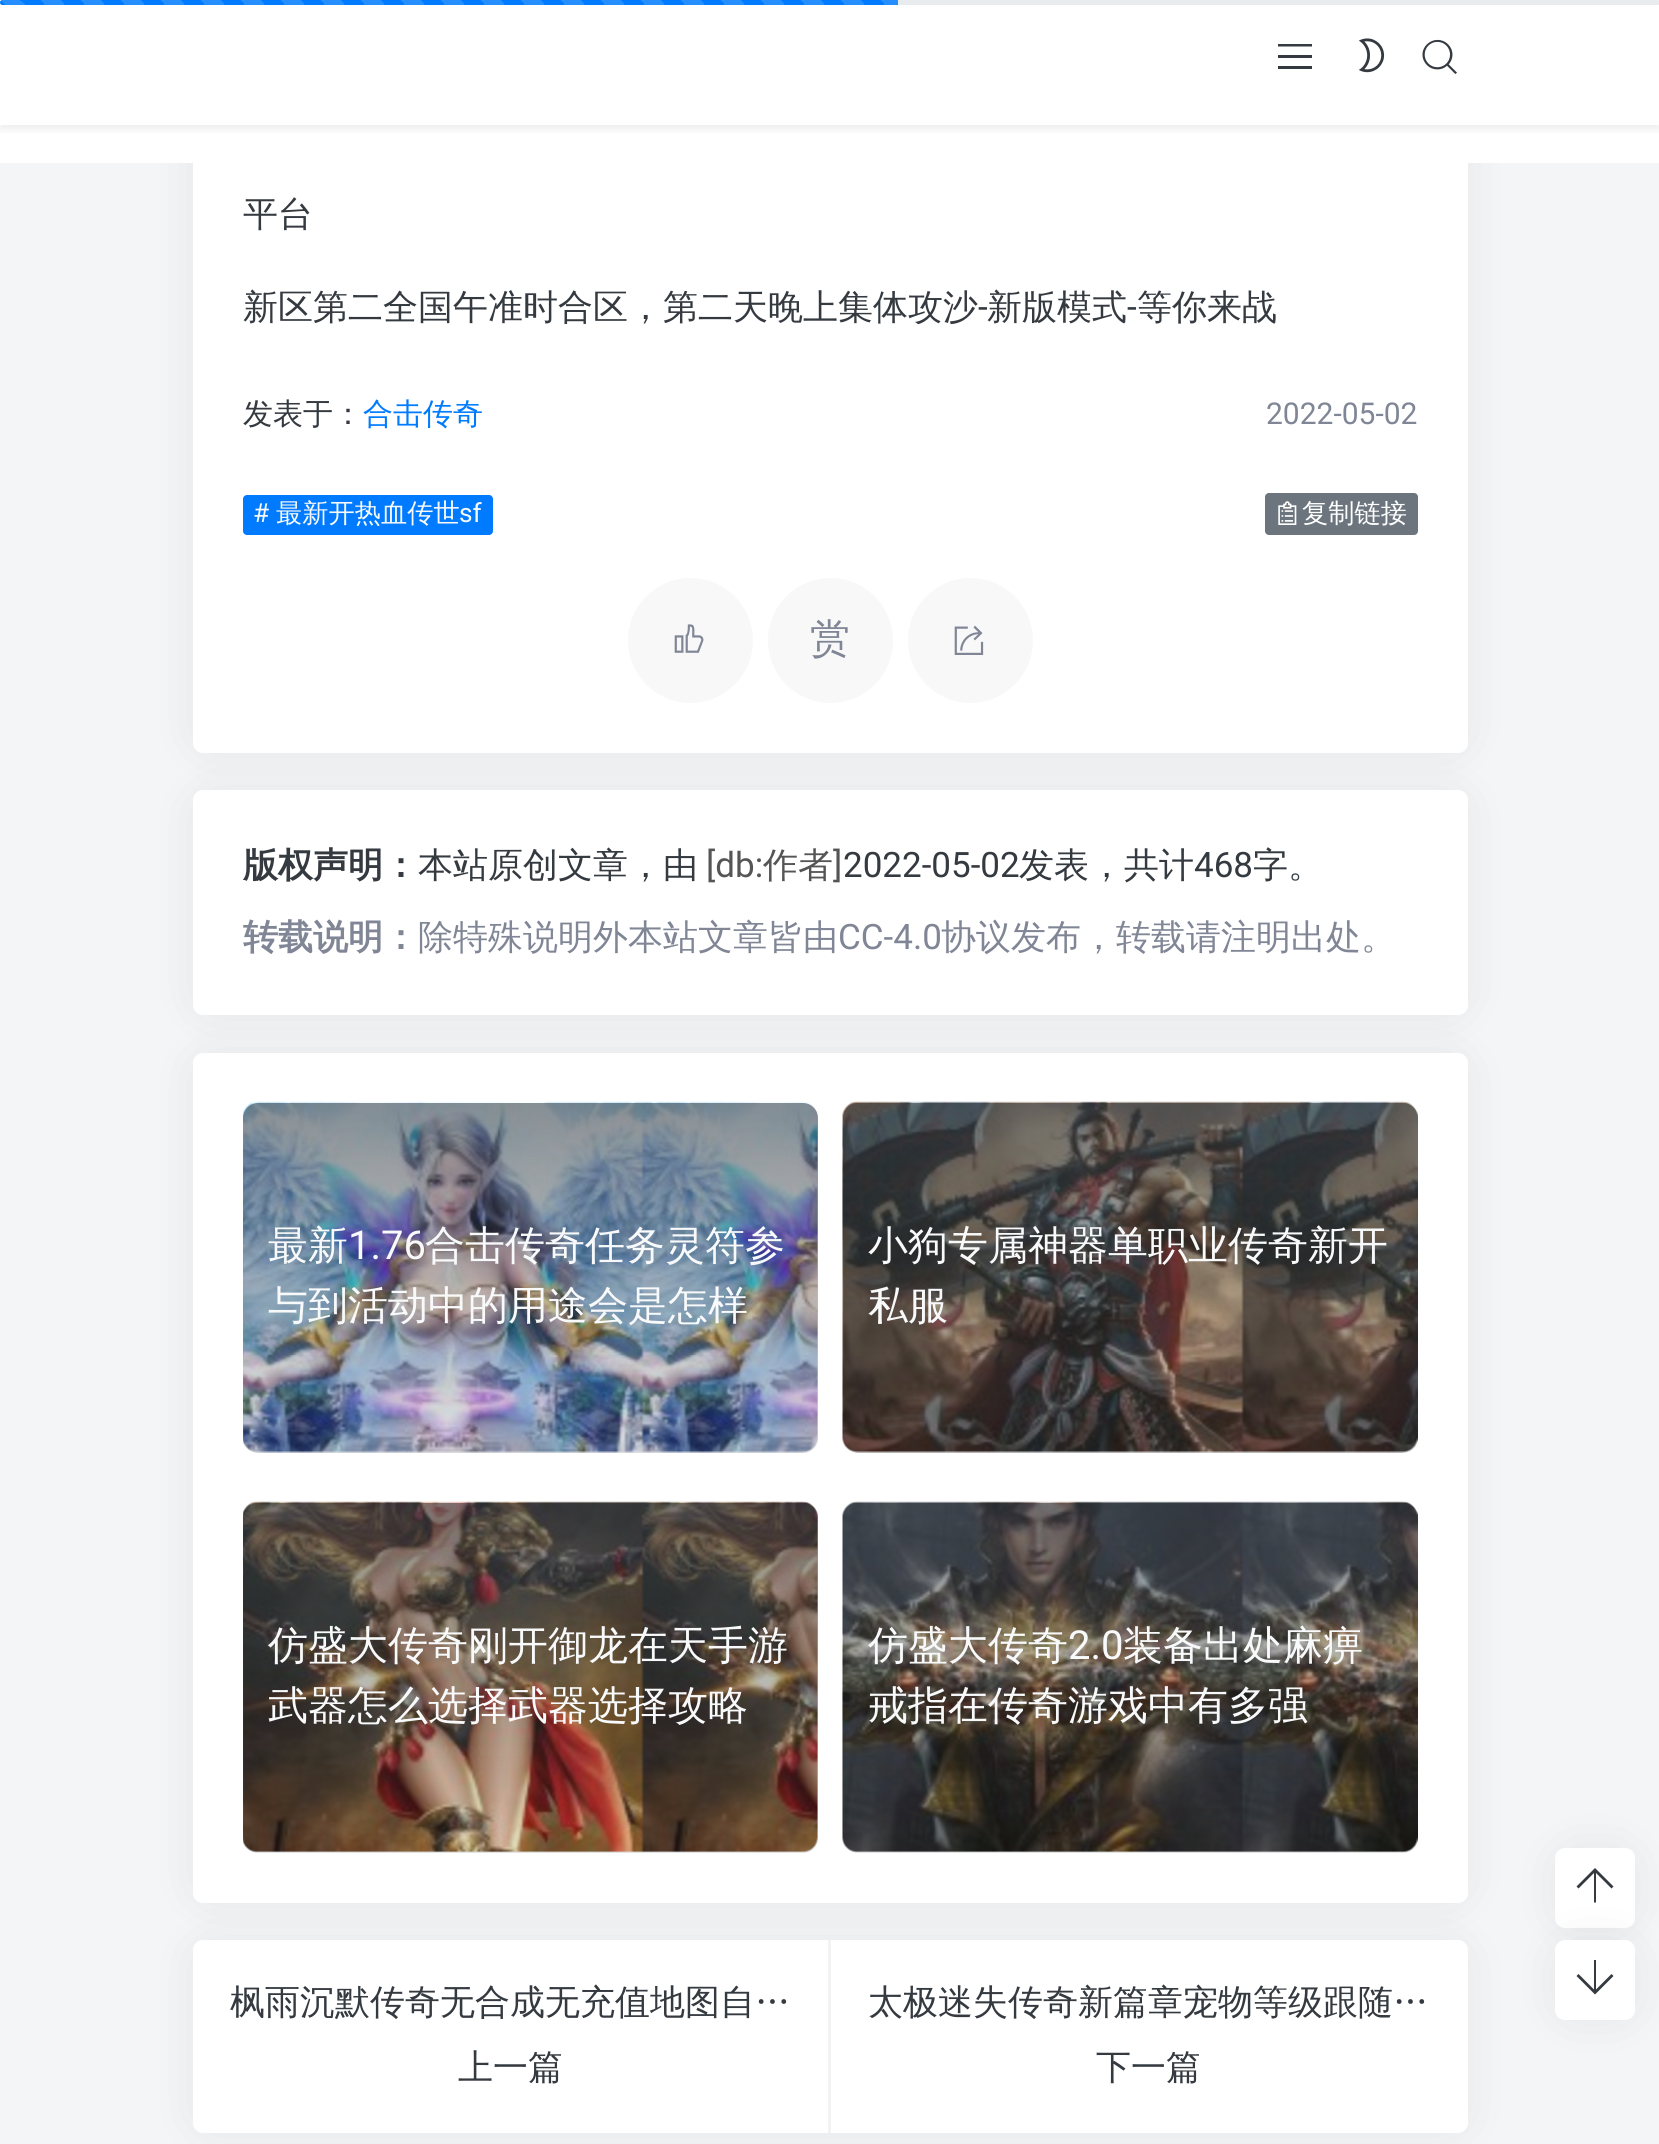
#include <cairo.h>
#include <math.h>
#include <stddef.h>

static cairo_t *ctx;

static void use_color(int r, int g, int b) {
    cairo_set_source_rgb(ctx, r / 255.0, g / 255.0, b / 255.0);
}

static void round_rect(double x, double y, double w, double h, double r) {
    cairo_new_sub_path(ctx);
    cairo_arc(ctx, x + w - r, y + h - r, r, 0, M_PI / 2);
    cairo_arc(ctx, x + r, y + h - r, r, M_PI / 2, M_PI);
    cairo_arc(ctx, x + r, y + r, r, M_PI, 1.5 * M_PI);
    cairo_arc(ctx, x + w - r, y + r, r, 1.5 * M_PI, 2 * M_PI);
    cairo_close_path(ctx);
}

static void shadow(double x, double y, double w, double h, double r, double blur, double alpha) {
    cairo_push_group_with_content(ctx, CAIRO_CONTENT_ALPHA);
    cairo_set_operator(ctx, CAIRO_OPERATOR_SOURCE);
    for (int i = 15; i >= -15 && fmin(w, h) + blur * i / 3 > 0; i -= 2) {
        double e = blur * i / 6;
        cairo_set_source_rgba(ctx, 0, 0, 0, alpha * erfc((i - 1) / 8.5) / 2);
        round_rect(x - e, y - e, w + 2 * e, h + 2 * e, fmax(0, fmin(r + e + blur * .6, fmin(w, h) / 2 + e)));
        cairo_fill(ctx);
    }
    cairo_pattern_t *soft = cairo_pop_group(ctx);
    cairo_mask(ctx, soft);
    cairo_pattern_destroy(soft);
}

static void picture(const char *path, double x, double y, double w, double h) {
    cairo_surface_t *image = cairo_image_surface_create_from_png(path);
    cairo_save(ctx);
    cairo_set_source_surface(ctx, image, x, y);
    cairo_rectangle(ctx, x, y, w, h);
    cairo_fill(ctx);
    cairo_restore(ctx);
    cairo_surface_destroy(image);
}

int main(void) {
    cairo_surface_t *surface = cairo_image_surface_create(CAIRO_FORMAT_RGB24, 1659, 2144);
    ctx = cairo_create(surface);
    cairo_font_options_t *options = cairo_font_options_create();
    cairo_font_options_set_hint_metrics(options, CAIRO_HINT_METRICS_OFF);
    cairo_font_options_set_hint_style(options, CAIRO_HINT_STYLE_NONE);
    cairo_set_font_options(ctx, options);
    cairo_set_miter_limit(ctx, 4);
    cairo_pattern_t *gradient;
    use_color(243, 245, 247);
    cairo_paint(ctx);
    use_color(149, 148, 147);
    shadow(210, -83, 1240, 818, 0, 27.5, 0.3);
    use_color(255, 255, 255);
    round_rect(193, -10, 1275, 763, 10);
    cairo_fill(ctx);
    cairo_rectangle(ctx, 0, 0, 1659, 163);
    cairo_fill(ctx);
    cairo_save(ctx);
    cairo_rectangle(ctx, 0, 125, 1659, 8);
    cairo_clip(ctx);
    use_color(0, 0, 0);
    shadow(0, 5, 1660, 125, 0, 5, 0.07);
    cairo_restore(ctx);
    use_color(52, 58, 64);
    cairo_new_path(ctx);
    cairo_move_to(ctx, 1312, 44);
    cairo_line_to(ctx, 1278, 44);
    cairo_line_to(ctx, 1278, 46.5);
    cairo_line_to(ctx, 1312, 46.5);
    cairo_close_path(ctx);
    cairo_move_to(ctx, 1312, 55);
    cairo_line_to(ctx, 1278, 55);
    cairo_line_to(ctx, 1278, 58);
    cairo_line_to(ctx, 1312, 58);
    cairo_close_path(ctx);
    cairo_move_to(ctx, 1312, 66);
    cairo_line_to(ctx, 1278, 66);
    cairo_line_to(ctx, 1278, 69);
    cairo_line_to(ctx, 1312, 69);
    cairo_close_path(ctx);
    cairo_fill(ctx);
    picture("img1.png", 1358, 38, 27, 35);
    picture("img2.png", 1422, 39, 35, 35);
    use_color(233, 236, 239);
    round_rect(0, 0, 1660, 5, 2.5);
    cairo_fill(ctx);
    use_color(0, 123, 255);
    cairo_new_path(ctx);
    cairo_move_to(ctx, 2.5, 0);
    cairo_line_to(ctx, 898, 0);
    cairo_line_to(ctx, 898, 5);
    cairo_line_to(ctx, 2.5, 5);
    cairo_curve_to(ctx, 1, 5, 0, 4, 0, 2.5);
    cairo_curve_to(ctx, 0, 1, 1, 0, 2.5, 0);
    cairo_close_path(ctx);
    cairo_fill(ctx);
    picture("img3.png", 1, 0, 897, 5);
    cairo_select_font_face(ctx, "WenQuanYi Zen Hei Medium", CAIRO_FONT_SLANT_NORMAL, CAIRO_FONT_WEIGHT_NORMAL);
    cairo_set_font_size(ctx, 35);
    use_color(52, 58, 64);
    cairo_move_to(ctx, 243, 226);
    cairo_show_text(ctx, "平台");
    cairo_move_to(ctx, 243, 319);
    cairo_show_text(ctx, "新区第二全国午准时合区，第二天晚上集体攻沙");
    cairo_select_font_face(ctx, "Roboto", CAIRO_FONT_SLANT_NORMAL, CAIRO_FONT_WEIGHT_NORMAL);
    cairo_move_to(ctx, 978, 319);
    cairo_show_text(ctx, "-");
    cairo_select_font_face(ctx, "WenQuanYi Zen Hei Medium", CAIRO_FONT_SLANT_NORMAL, CAIRO_FONT_WEIGHT_NORMAL);
    cairo_move_to(ctx, 987, 319);
    cairo_show_text(ctx, "新版模式");
    cairo_select_font_face(ctx, "Roboto", CAIRO_FONT_SLANT_NORMAL, CAIRO_FONT_WEIGHT_NORMAL);
    cairo_move_to(ctx, 1127, 319);
    cairo_show_text(ctx, "-");
    cairo_select_font_face(ctx, "WenQuanYi Zen Hei Medium", CAIRO_FONT_SLANT_NORMAL, CAIRO_FONT_WEIGHT_NORMAL);
    cairo_move_to(ctx, 1137, 319);
    cairo_show_text(ctx, "等你来战");
    cairo_set_font_size(ctx, 30);
    cairo_move_to(ctx, 243, 424);
    cairo_show_text(ctx, "发表于：");
    use_color(0, 123, 255);
    cairo_move_to(ctx, 363, 424);
    cairo_show_text(ctx, "合击传奇");
    cairo_select_font_face(ctx, "Roboto", CAIRO_FONT_SLANT_NORMAL, CAIRO_FONT_WEIGHT_NORMAL);
    use_color(128, 134, 149);
    cairo_move_to(ctx, 1266, 424);
    cairo_show_text(ctx, "2022-05-02");
    use_color(0, 123, 255);
    round_rect(243, 495, 250, 40, 4);
    cairo_fill(ctx);
    cairo_set_font_size(ctx, 26.25);
    use_color(248, 249, 250);
    cairo_move_to(ctx, 253, 522);
    cairo_show_text(ctx, "#");
    cairo_select_font_face(ctx, "WenQuanYi Zen Hei Medium", CAIRO_FONT_SLANT_NORMAL, CAIRO_FONT_WEIGHT_NORMAL);
    cairo_move_to(ctx, 276, 522);
    cairo_show_text(ctx, "最新开热血传世");
    cairo_select_font_face(ctx, "Roboto", CAIRO_FONT_SLANT_NORMAL, CAIRO_FONT_WEIGHT_NORMAL);
    cairo_move_to(ctx, 459, 522);
    cairo_show_text(ctx, "sf");
    use_color(108, 117, 125);
    round_rect(1265, 493, 153, 42, 4);
    cairo_fill(ctx);
    picture("img4.png", 1278, 501, 19, 24);
    cairo_select_font_face(ctx, "WenQuanYi Zen Hei Medium", CAIRO_FONT_SLANT_NORMAL, CAIRO_FONT_WEIGHT_NORMAL);
    use_color(255, 255, 255);
    cairo_move_to(ctx, 1302, 522);
    cairo_show_text(ctx, "复制链接");
    use_color(248, 248, 249);
    cairo_new_path(ctx);
    cairo_arc(ctx, 690.5, 640.5, 62.5, 0, 2 * M_PI);
    cairo_fill(ctx);
    picture("img5.png", 674, 624, 30, 29);
    cairo_arc(ctx, 830.5, 640.5, 62.5, 0, 2 * M_PI);
    cairo_fill(ctx);
    cairo_set_font_size(ctx, 40);
    use_color(128, 134, 149);
    cairo_move_to(ctx, 810, 652);
    cairo_show_text(ctx, "赏");
    use_color(248, 248, 249);
    cairo_new_path(ctx);
    cairo_arc(ctx, 970.5, 640.5, 62.5, 0, 2 * M_PI);
    cairo_fill(ctx);
    picture("img6.png", 954, 625, 30, 30);
    use_color(149, 148, 147);
    shadow(210, 808, 1240, 190, 0, 27.5, 0.3);
    use_color(255, 255, 255);
    round_rect(193, 790, 1275, 225, 10);
    cairo_fill(ctx);
    cairo_select_font_face(ctx, "WenQuanYi Zen Hei", CAIRO_FONT_SLANT_NORMAL, CAIRO_FONT_WEIGHT_BOLD);
    cairo_set_font_size(ctx, 35);
    use_color(52, 58, 64);
    cairo_move_to(ctx, 243, 877);
    cairo_show_text(ctx, "版权声明：");
    cairo_select_font_face(ctx, "WenQuanYi Zen Hei Medium", CAIRO_FONT_SLANT_NORMAL, CAIRO_FONT_WEIGHT_NORMAL);
    cairo_move_to(ctx, 418, 877);
    cairo_show_text(ctx, "本站原创文章，由");
    cairo_select_font_face(ctx, "Roboto", CAIRO_FONT_SLANT_NORMAL, CAIRO_FONT_WEIGHT_NORMAL);
    use_color(85, 85, 85);
    cairo_move_to(ctx, 706, 877);
    cairo_show_text(ctx, "[db:");
    cairo_select_font_face(ctx, "WenQuanYi Zen Hei Medium", CAIRO_FONT_SLANT_NORMAL, CAIRO_FONT_WEIGHT_NORMAL);
    cairo_move_to(ctx, 763, 877);
    cairo_show_text(ctx, "作者");
    cairo_select_font_face(ctx, "Roboto", CAIRO_FONT_SLANT_NORMAL, CAIRO_FONT_WEIGHT_NORMAL);
    cairo_move_to(ctx, 833, 877);
    cairo_show_text(ctx, "]");
    use_color(52, 58, 64);
    cairo_move_to(ctx, 843, 877);
    cairo_show_text(ctx, "2022-05-02");
    cairo_select_font_face(ctx, "WenQuanYi Zen Hei Medium", CAIRO_FONT_SLANT_NORMAL, CAIRO_FONT_WEIGHT_NORMAL);
    cairo_move_to(ctx, 1019, 877);
    cairo_show_text(ctx, "发表，共计");
    cairo_select_font_face(ctx, "Roboto", CAIRO_FONT_SLANT_NORMAL, CAIRO_FONT_WEIGHT_NORMAL);
    cairo_move_to(ctx, 1194, 877);
    cairo_show_text(ctx, "468");
    cairo_select_font_face(ctx, "WenQuanYi Zen Hei Medium", CAIRO_FONT_SLANT_NORMAL, CAIRO_FONT_WEIGHT_NORMAL);
    cairo_move_to(ctx, 1253, 877);
    cairo_show_text(ctx, "字。");
    cairo_select_font_face(ctx, "WenQuanYi Zen Hei", CAIRO_FONT_SLANT_NORMAL, CAIRO_FONT_WEIGHT_BOLD);
    use_color(128, 134, 149);
    cairo_move_to(ctx, 243, 949);
    cairo_show_text(ctx, "转载说明：");
    cairo_select_font_face(ctx, "WenQuanYi Zen Hei Medium", CAIRO_FONT_SLANT_NORMAL, CAIRO_FONT_WEIGHT_NORMAL);
    cairo_move_to(ctx, 418, 949);
    cairo_show_text(ctx, "除特殊说明外本站文章皆由");
    cairo_select_font_face(ctx, "Roboto", CAIRO_FONT_SLANT_NORMAL, CAIRO_FONT_WEIGHT_NORMAL);
    cairo_move_to(ctx, 838, 949);
    cairo_show_text(ctx, "CC-4.0");
    cairo_select_font_face(ctx, "WenQuanYi Zen Hei Medium", CAIRO_FONT_SLANT_NORMAL, CAIRO_FONT_WEIGHT_NORMAL);
    cairo_move_to(ctx, 941, 949);
    cairo_show_text(ctx, "协议发布，转载请注明出处。");
    use_color(149, 148, 147);
    shadow(210, 1070, 1240, 815, 0, 27.5, 0.3);
    use_color(255, 255, 255);
    round_rect(193, 1053, 1275, 850, 10);
    cairo_fill(ctx);
    picture("img7.png", 243, 1101, 575, 352);
    gradient = cairo_pattern_create_linear(530, 1103, 530, 1453);
    cairo_pattern_add_color_stop_rgba(gradient, 0, 0.212, 0.243, 0.282, 0.58);
    cairo_pattern_add_color_stop_rgba(gradient, 1, 0.278, 0.29, 0.306, 0.16);
    cairo_set_source(ctx, gradient);
    cairo_pattern_destroy(gradient);
    round_rect(243, 1103, 575, 350, 15);
    cairo_fill(ctx);
    cairo_set_font_size(ctx, 40);
    use_color(248, 249, 250);
    cairo_move_to(ctx, 268, 1259);
    cairo_show_text(ctx, "最新");
    cairo_select_font_face(ctx, "Roboto", CAIRO_FONT_SLANT_NORMAL, CAIRO_FONT_WEIGHT_NORMAL);
    cairo_move_to(ctx, 348, 1259);
    cairo_show_text(ctx, "1.76");
    cairo_select_font_face(ctx, "WenQuanYi Zen Hei Medium", CAIRO_FONT_SLANT_NORMAL, CAIRO_FONT_WEIGHT_NORMAL);
    cairo_move_to(ctx, 425, 1259);
    cairo_show_text(ctx, "合击传奇任务灵符参");
    cairo_move_to(ctx, 268, 1319);
    cairo_show_text(ctx, "与到活动中的用途会是怎样");
    picture("img8.png", 842, 1101, 576, 352);
    gradient = cairo_pattern_create_linear(1130, 1103, 1130, 1453);
    cairo_pattern_add_color_stop_rgba(gradient, 0, 0.212, 0.243, 0.282, 0.58);
    cairo_pattern_add_color_stop_rgba(gradient, 1, 0.278, 0.29, 0.306, 0.16);
    cairo_set_source(ctx, gradient);
    cairo_pattern_destroy(gradient);
    round_rect(843, 1103, 575, 350, 15);
    cairo_fill(ctx);
    use_color(248, 249, 250);
    cairo_move_to(ctx, 868, 1259);
    cairo_show_text(ctx, "小狗专属神器单职业传奇新开");
    cairo_move_to(ctx, 868, 1319);
    cairo_show_text(ctx, "私服");
    picture("img9.png", 243, 1501, 575, 351);
    gradient = cairo_pattern_create_linear(530, 1503, 530, 1853);
    cairo_pattern_add_color_stop_rgba(gradient, 0, 0.212, 0.243, 0.282, 0.58);
    cairo_pattern_add_color_stop_rgba(gradient, 1, 0.278, 0.29, 0.306, 0.16);
    cairo_set_source(ctx, gradient);
    cairo_pattern_destroy(gradient);
    round_rect(243, 1503, 575, 350, 15);
    cairo_fill(ctx);
    use_color(248, 249, 250);
    cairo_move_to(ctx, 268, 1659);
    cairo_show_text(ctx, "仿盛大传奇刚开御龙在天手游");
    cairo_move_to(ctx, 268, 1719);
    cairo_show_text(ctx, "武器怎么选择武器选择攻略");
    picture("img10.png", 842, 1501, 576, 351);
    gradient = cairo_pattern_create_linear(1130, 1503, 1130, 1853);
    cairo_pattern_add_color_stop_rgba(gradient, 0, 0.212, 0.243, 0.282, 0.58);
    cairo_pattern_add_color_stop_rgba(gradient, 1, 0.278, 0.29, 0.306, 0.16);
    cairo_set_source(ctx, gradient);
    cairo_pattern_destroy(gradient);
    round_rect(843, 1503, 575, 350, 15);
    cairo_fill(ctx);
    use_color(248, 249, 250);
    cairo_move_to(ctx, 868, 1659);
    cairo_show_text(ctx, "仿盛大传奇");
    cairo_select_font_face(ctx, "Roboto", CAIRO_FONT_SLANT_NORMAL, CAIRO_FONT_WEIGHT_NORMAL);
    cairo_move_to(ctx, 1068, 1659);
    cairo_show_text(ctx, "2.0");
    cairo_select_font_face(ctx, "WenQuanYi Zen Hei Medium", CAIRO_FONT_SLANT_NORMAL, CAIRO_FONT_WEIGHT_NORMAL);
    cairo_move_to(ctx, 1123, 1659);
    cairo_show_text(ctx, "装备出处麻痹");
    cairo_move_to(ctx, 868, 1719);
    cairo_show_text(ctx, "戒指在传奇游戏中有多强");
    use_color(149, 148, 147);
    shadow(210, 1958, 1240, 157, 0, 27.5, 0.3);
    use_color(255, 255, 255);
    round_rect(193, 1940, 1275, 193, 10);
    cairo_fill(ctx);
    use_color(243, 243, 243);
    cairo_rectangle(ctx, 828, 1940, 3, 193);
    cairo_fill(ctx);
    cairo_set_font_size(ctx, 35);
    use_color(52, 58, 64);
    cairo_move_to(ctx, 230, 2014);
    cairo_show_text(ctx, "枫雨沉默传奇无合成无充值地图自…");
    cairo_move_to(ctx, 458, 2079);
    cairo_show_text(ctx, "上一篇");
    cairo_move_to(ctx, 868, 2014);
    cairo_show_text(ctx, "太极迷失传奇新篇章宠物等级跟随…");
    cairo_move_to(ctx, 1096, 2079);
    cairo_show_text(ctx, "下一篇");
    use_color(149, 148, 147);
    shadow(1573, 1865, 45, 45, 0, 27.5, 0.3);
    use_color(255, 255, 255);
    round_rect(1555, 1848, 80, 80, 10);
    cairo_fill(ctx);
    use_color(52, 58, 64);
    cairo_new_path(ctx);
    cairo_move_to(ctx, 1613.5, 1886.5);
    cairo_line_to(ctx, 1595, 1868);
    cairo_line_to(ctx, 1576.5, 1886.5);
    cairo_line_to(ctx, 1578.5, 1888.5);
    cairo_line_to(ctx, 1594, 1873);
    cairo_line_to(ctx, 1594, 1902.5);
    cairo_line_to(ctx, 1596, 1902.5);
    cairo_line_to(ctx, 1596, 1873);
    cairo_line_to(ctx, 1611.5, 1888.5);
    cairo_close_path(ctx);
    cairo_fill(ctx);
    use_color(149, 148, 147);
    shadow(1573, 1958, 45, 45, 0, 27.5, 0.3);
    use_color(255, 255, 255);
    round_rect(1555, 1940, 80, 80, 10);
    cairo_fill(ctx);
    use_color(52, 58, 64);
    cairo_new_path(ctx);
    cairo_move_to(ctx, 1611.5, 1974);
    cairo_line_to(ctx, 1596, 1989.5);
    cairo_line_to(ctx, 1596, 1960);
    cairo_line_to(ctx, 1594, 1960);
    cairo_line_to(ctx, 1594, 1989.5);
    cairo_line_to(ctx, 1578.5, 1974);
    cairo_line_to(ctx, 1576.5, 1976);
    cairo_line_to(ctx, 1595, 1994.5);
    cairo_line_to(ctx, 1613.5, 1976);
    cairo_close_path(ctx);
    cairo_fill(ctx);
    cairo_surface_write_to_png(surface, "result.png");
    cairo_font_options_destroy(options);
    cairo_destroy(ctx);
    cairo_surface_destroy(surface);
    return 0;
}
